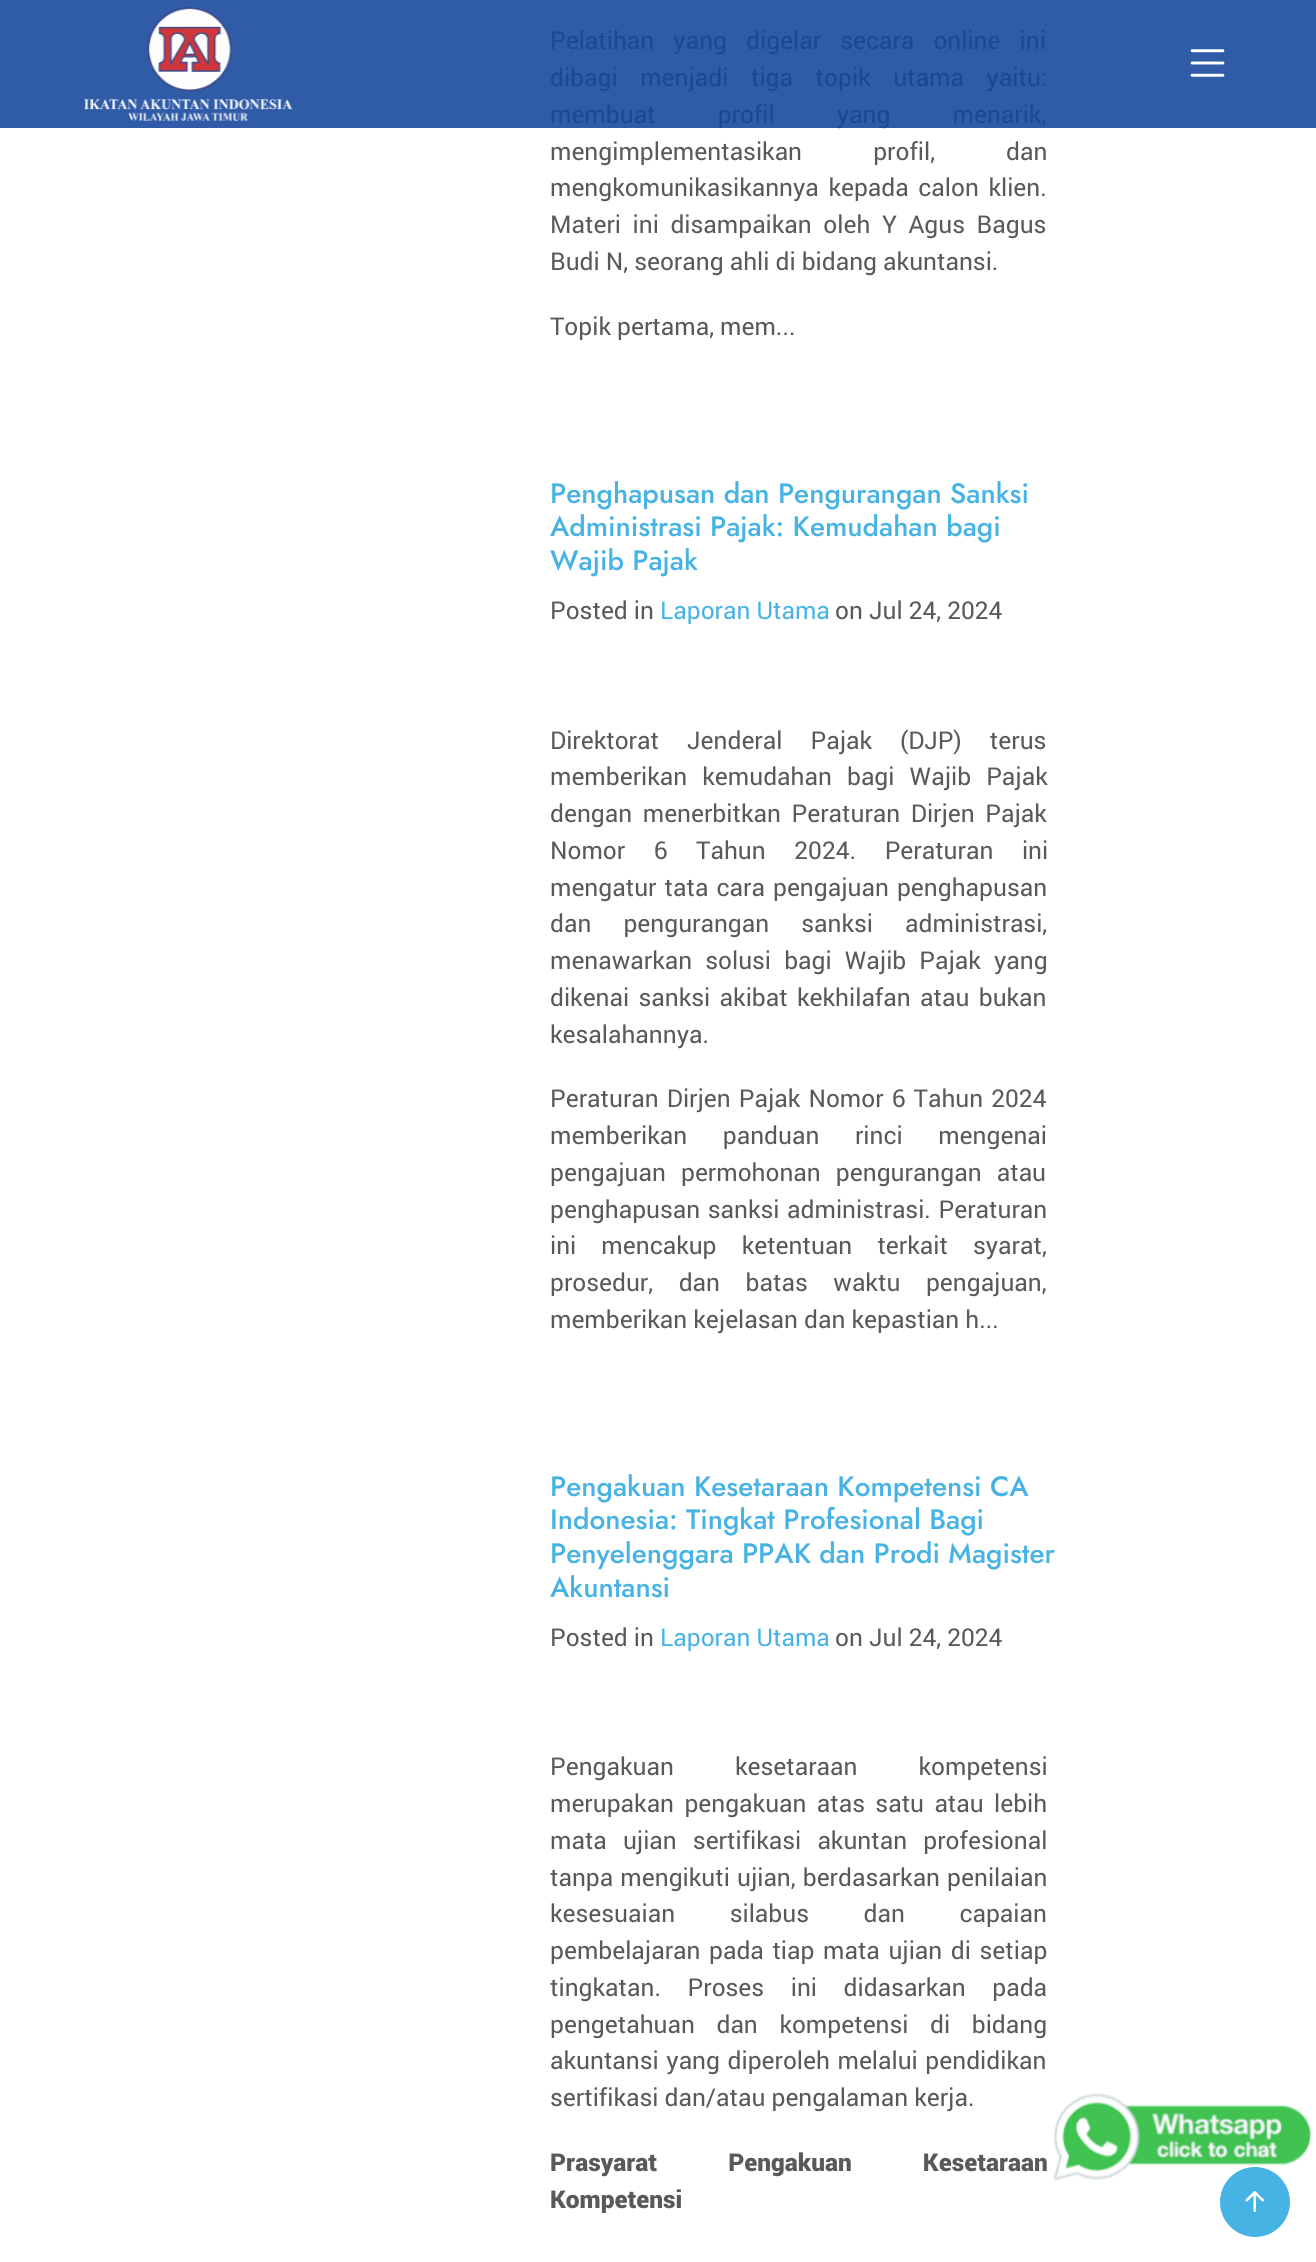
#include <cairo.h>
#include <math.h>
#include <stddef.h>

static cairo_t *ctx;

static void use_color(int r, int g, int b) {
    cairo_set_source_rgb(ctx, r / 255.0, g / 255.0, b / 255.0);
}

static void spaced_text(double x, double y, const char *s, double letter, double word) {
    cairo_move_to(ctx, x, y);
    while (*s) {
        char ch[5] = {0};
        int n = 0;
        do ch[n++] = *s++; while ((*s & 0xC0) == 0x80);
        cairo_show_text(ctx, ch);
        cairo_rel_move_to(ctx, letter + word * (*ch == ' '), 0);
    }
}

static void picture(const char *path, double x, double y, double w, double h) {
    cairo_surface_t *image = cairo_image_surface_create_from_png(path);
    cairo_save(ctx);
    cairo_set_source_surface(ctx, image, x, y);
    cairo_rectangle(ctx, x, y, w, h);
    cairo_fill(ctx);
    cairo_restore(ctx);
    cairo_surface_destroy(image);
}

int main(void) {
    cairo_surface_t *surface = cairo_image_surface_create(CAIRO_FORMAT_RGB24, 1316, 2262);
    ctx = cairo_create(surface);
    cairo_font_options_t *options = cairo_font_options_create();
    cairo_font_options_set_hint_metrics(options, CAIRO_HINT_METRICS_OFF);
    cairo_font_options_set_hint_style(options, CAIRO_HINT_STYLE_NONE);
    cairo_set_font_options(ctx, options);
    cairo_set_miter_limit(ctx, 4);
    use_color(255, 255, 255);
    cairo_paint(ctx);
    use_color(47, 91, 167);
    cairo_rectangle(ctx, 0, 0, 1316, 128);
    cairo_fill(ctx);
    picture("img1.png", 84, 7, 209, 114);
    picture("img2.png", 1190, 49, 35, 28);
    cairo_select_font_face(ctx, "Roboto", CAIRO_FONT_SLANT_NORMAL, CAIRO_FONT_WEIGHT_NORMAL);
    cairo_set_font_size(ctx, 24.5);
    use_color(27, 71, 147);
    spaced_text(550, 49, "Pelatihan yang digelar secara online ini", 0, 13);
    spaced_text(550, 86, "dibagi menjadi tiga topik utama yaitu:", 0, 16.5);
    spaced_text(550, 123, "membuat profil yang menarik,", 0, 56);
    use_color(89, 89, 89);
    spaced_text(550, 160, "mengimplementasikan profil, dan", 0, 65);
    spaced_text(550, 196, "mengkomunikasikannya kepada calon klien.", 0, 3.5);
    spaced_text(550, 233, "Materi ini disampaikan oleh Y Agus Bagus", 0, 5.5);
    cairo_move_to(ctx, 550, 270);
    cairo_show_text(ctx, "Budi N, seorang ahli di bidang akuntansi.");
    cairo_move_to(ctx, 550, 335);
    cairo_show_text(ctx, "Topik pertama, mem...");
    cairo_select_font_face(ctx, "Jost Medium", CAIRO_FONT_SLANT_NORMAL, CAIRO_FONT_WEIGHT_NORMAL);
    cairo_set_font_size(ctx, 28);
    use_color(71, 178, 228);
    cairo_move_to(ctx, 550, 503);
    cairo_show_text(ctx, "Penghapusan dan Pengurangan Sanksi");
    cairo_move_to(ctx, 550, 536);
    cairo_show_text(ctx, "Administrasi Pajak: Kemudahan bagi");
    cairo_move_to(ctx, 550, 570);
    cairo_show_text(ctx, "Wajib Pajak");
    cairo_select_font_face(ctx, "Roboto", CAIRO_FONT_SLANT_NORMAL, CAIRO_FONT_WEIGHT_NORMAL);
    cairo_set_font_size(ctx, 24.5);
    use_color(89, 89, 89);
    cairo_move_to(ctx, 550, 619);
    cairo_show_text(ctx, "Posted in");
    use_color(71, 178, 228);
    cairo_move_to(ctx, 660, 619);
    cairo_show_text(ctx, "Laporan Utama");
    use_color(89, 89, 89);
    cairo_move_to(ctx, 835, 619);
    cairo_show_text(ctx, "on Jul 24, 2024");
    spaced_text(550, 749, "Direktorat Jenderal Pajak (DJP) terus", 0, 22);
    spaced_text(550, 785, "memberikan kemudahan bagi Wajib Pajak", 0, 9);
    spaced_text(550, 822, "dengan menerbitkan Peraturan Dirjen Pajak", 0, 4.5);
    spaced_text(550, 859, "Nomor 6 Tahun 2024. Peraturan ini", 0, 22.5);
    spaced_text(550, 896, "mengatur tata cara pengajuan penghapusan", 0, 2);
    spaced_text(550, 932, "dan pengurangan sanksi administrasi,", 0, 26);
    spaced_text(550, 969, "menawarkan solusi bagi Wajib Pajak yang", 0, 7);
    spaced_text(550, 1006, "dikenai sanksi akibat kekhilafan atau bukan", 0, 3.25);
    cairo_move_to(ctx, 550, 1043);
    cairo_show_text(ctx, "kesalahannya.");
    spaced_text(550, 1107, "Peraturan Dirjen Pajak Nomor 6 Tahun 2024", 0, 2);
    spaced_text(550, 1144, "memberikan panduan rinci mengenai", 0, 29.5);
    spaced_text(550, 1181, "pengajuan permohonan pengurangan atau", 0, 9);
    spaced_text(550, 1218, "penghapusan sanksi administrasi. Peraturan", 0, 1.5);
    spaced_text(550, 1254, "ini mencakup ketentuan terkait syarat,", 0, 19);
    spaced_text(550, 1291, "prosedur, dan batas waktu pengajuan,", 0, 19.5);
    cairo_move_to(ctx, 550, 1328);
    cairo_show_text(ctx, "memberikan kejelasan dan kepastian h...");
    cairo_select_font_face(ctx, "Jost Medium", CAIRO_FONT_SLANT_NORMAL, CAIRO_FONT_WEIGHT_NORMAL);
    cairo_set_font_size(ctx, 28);
    use_color(71, 178, 228);
    cairo_move_to(ctx, 550, 1496);
    cairo_show_text(ctx, "Pengakuan Kesetaraan Kompetensi CA");
    cairo_move_to(ctx, 550, 1529);
    cairo_show_text(ctx, "Indonesia: Tingkat Profesional Bagi");
    cairo_move_to(ctx, 550, 1563);
    cairo_show_text(ctx, "Penyelenggara PPAK dan Prodi Magister");
    cairo_move_to(ctx, 550, 1597);
    cairo_show_text(ctx, "Akuntansi");
    cairo_select_font_face(ctx, "Roboto", CAIRO_FONT_SLANT_NORMAL, CAIRO_FONT_WEIGHT_NORMAL);
    cairo_set_font_size(ctx, 24.5);
    use_color(89, 89, 89);
    cairo_move_to(ctx, 550, 1646);
    cairo_show_text(ctx, "Posted in");
    use_color(71, 178, 228);
    cairo_move_to(ctx, 660, 1646);
    cairo_show_text(ctx, "Laporan Utama");
    use_color(89, 89, 89);
    cairo_move_to(ctx, 835, 1646);
    cairo_show_text(ctx, "on Jul 24, 2024");
    spaced_text(550, 1775, "Pengakuan kesetaraan kompetensi", 0, 55);
    spaced_text(550, 1812, "merupakan pengakuan atas satu atau lebih", 0, 4.25);
    spaced_text(550, 1849, "mata ujian sertifikasi akuntan profesional", 0, 10);
    spaced_text(550, 1886, "tanpa mengikuti ujian, berdasarkan penilaian", 0, 1);
    spaced_text(550, 1922, "kesesuaian silabus dan capaian", 0, 48.5);
    spaced_text(550, 1959, "pembelajaran pada tiap mata ujian di setiap", 0, 2.5);
    spaced_text(550, 1996, "tingkatan. Proses ini didasarkan pada", 0, 20.5);
    spaced_text(550, 2033, "pengetahuan dan kompetensi di bidang", 0, 15.5);
    spaced_text(550, 2069, "akuntansi yang diperoleh melalui pendidikan", 0, 1.5);
    cairo_move_to(ctx, 550, 2106);
    cairo_show_text(ctx, "sertifikasi dan/atau pengalaman kerja.");
    cairo_select_font_face(ctx, "Roboto Black", CAIRO_FONT_SLANT_NORMAL, CAIRO_FONT_WEIGHT_NORMAL);
    spaced_text(550, 2171, "Prasyarat Pengakuan Kesetaraan", 0, 65);
    cairo_move_to(ctx, 550, 2208);
    cairo_show_text(ctx, "Kompetensi");
    picture("img3.png", 1053, 2093, 259, 88);
    use_color(71, 178, 228);
    cairo_arc(ctx, 1255, 2202, 35, 0, 2 * M_PI);
    cairo_fill(ctx);
    picture("img4.png", 1245, 2191, 19, 21);
    cairo_surface_write_to_png(surface, "result.png");
    cairo_font_options_destroy(options);
    cairo_destroy(ctx);
    cairo_surface_destroy(surface);
    return 0;
}
